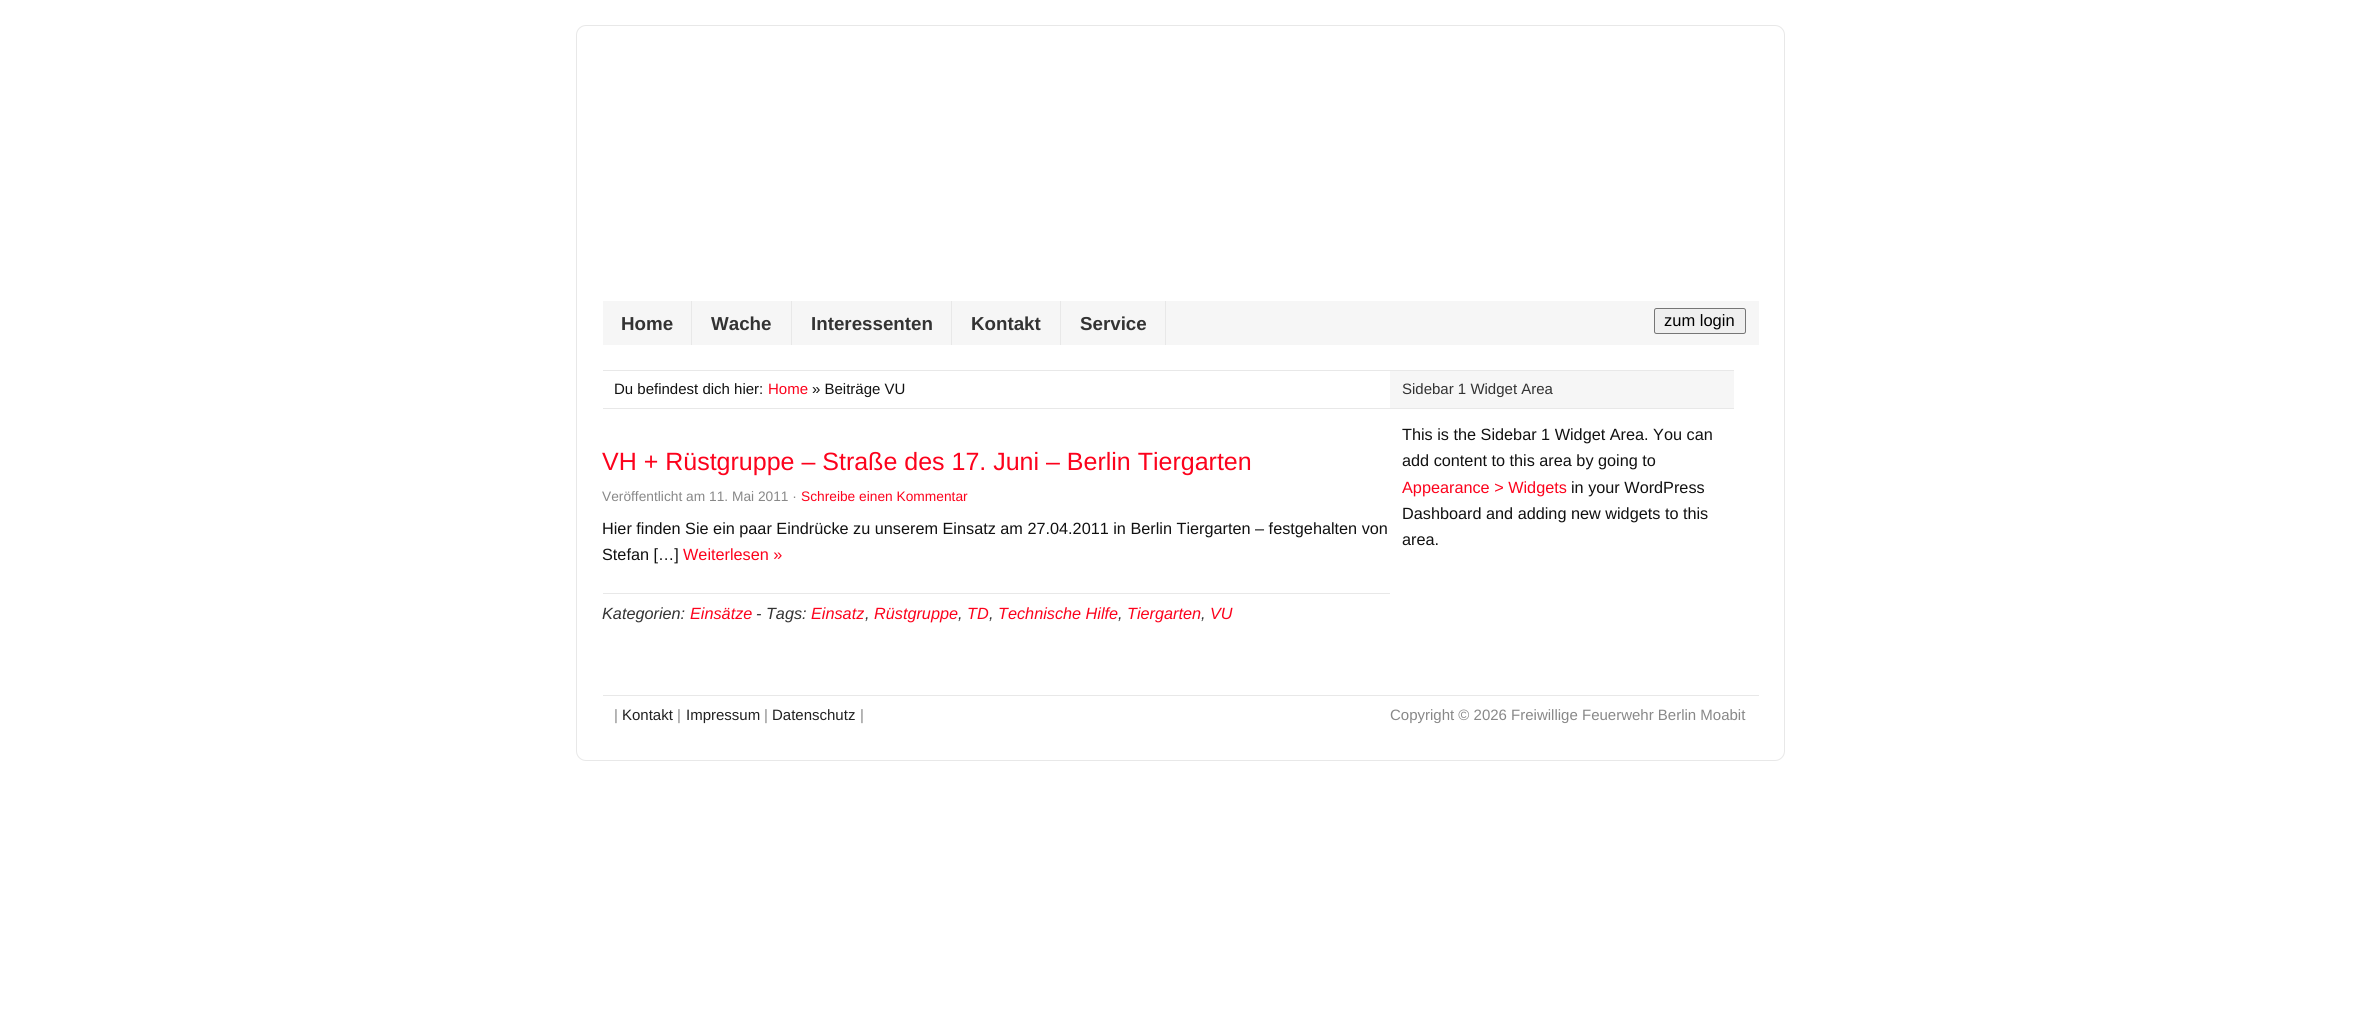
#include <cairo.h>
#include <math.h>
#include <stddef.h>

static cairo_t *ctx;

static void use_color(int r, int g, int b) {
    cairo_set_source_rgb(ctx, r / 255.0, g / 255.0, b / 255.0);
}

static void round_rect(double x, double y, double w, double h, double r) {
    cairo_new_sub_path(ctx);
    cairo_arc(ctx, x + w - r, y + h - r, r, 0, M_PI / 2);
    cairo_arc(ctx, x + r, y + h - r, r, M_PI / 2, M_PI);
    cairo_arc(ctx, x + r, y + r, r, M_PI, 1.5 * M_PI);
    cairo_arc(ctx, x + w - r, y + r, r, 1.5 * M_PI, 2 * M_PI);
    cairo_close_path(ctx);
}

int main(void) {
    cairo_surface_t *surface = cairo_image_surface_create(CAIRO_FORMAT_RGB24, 2360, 1031);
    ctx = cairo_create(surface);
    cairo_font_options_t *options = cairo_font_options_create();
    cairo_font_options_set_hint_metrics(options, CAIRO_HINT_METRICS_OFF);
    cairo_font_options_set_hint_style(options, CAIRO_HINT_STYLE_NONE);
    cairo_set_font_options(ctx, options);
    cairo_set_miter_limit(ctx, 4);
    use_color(255, 255, 255);
    cairo_paint(ctx);
    round_rect(576.5, 25.5, 1208, 735, 9.5);
    use_color(232, 232, 232);
    cairo_set_line_width(ctx, 1);
    cairo_stroke(ctx);
    use_color(246, 246, 246);
    cairo_rectangle(ctx, 603, 301, 1156, 44);
    cairo_fill(ctx);
    use_color(232, 232, 232);
    cairo_rectangle(ctx, 691, 301, 1, 44);
    cairo_fill(ctx);
    cairo_select_font_face(ctx, "Liberation Sans", CAIRO_FONT_SLANT_NORMAL, CAIRO_FONT_WEIGHT_BOLD);
    cairo_set_font_size(ctx, 18.75);
    use_color(51, 51, 51);
    cairo_move_to(ctx, 621, 330);
    cairo_show_text(ctx, "Home");
    use_color(232, 232, 232);
    cairo_rectangle(ctx, 791, 301, 1, 44);
    cairo_fill(ctx);
    use_color(51, 51, 51);
    cairo_move_to(ctx, 711, 330);
    cairo_show_text(ctx, "Wache");
    use_color(232, 232, 232);
    cairo_rectangle(ctx, 951, 301, 1, 44);
    cairo_fill(ctx);
    use_color(51, 51, 51);
    cairo_move_to(ctx, 811, 330);
    cairo_show_text(ctx, "Interessenten");
    use_color(232, 232, 232);
    cairo_rectangle(ctx, 1060, 301, 1, 44);
    cairo_fill(ctx);
    use_color(51, 51, 51);
    cairo_move_to(ctx, 971, 330);
    cairo_show_text(ctx, "Kontakt");
    use_color(232, 232, 232);
    cairo_rectangle(ctx, 1165, 301, 1, 44);
    cairo_fill(ctx);
    use_color(51, 51, 51);
    cairo_move_to(ctx, 1080, 330);
    cairo_show_text(ctx, "Service");
    use_color(239, 239, 239);
    round_rect(1654.5, 308.5, 91, 25, 2);
    cairo_fill_preserve(ctx);
    use_color(118, 118, 118);
    cairo_stroke(ctx);
    cairo_select_font_face(ctx, "Liberation Sans", CAIRO_FONT_SLANT_NORMAL, CAIRO_FONT_WEIGHT_NORMAL);
    cairo_set_font_size(ctx, 16.5);
    use_color(0, 0, 0);
    cairo_move_to(ctx, 1664, 326);
    cairo_show_text(ctx, "zum login");
    use_color(232, 232, 232);
    cairo_rectangle(ctx, 603, 370, 1131, 1);
    cairo_fill(ctx);
    cairo_rectangle(ctx, 603, 408, 1131, 1);
    cairo_fill(ctx);
    cairo_set_font_size(ctx, 15);
    use_color(17, 17, 17);
    cairo_move_to(ctx, 614, 394);
    cairo_show_text(ctx, "Du befindest dich hier:");
    use_color(252, 2, 28);
    cairo_move_to(ctx, 768, 394);
    cairo_show_text(ctx, "Home");
    use_color(17, 17, 17);
    cairo_move_to(ctx, 812, 394);
    cairo_show_text(ctx, "» Beiträge VU");
    cairo_set_font_size(ctx, 25);
    use_color(252, 2, 28);
    cairo_move_to(ctx, 602, 470);
    cairo_show_text(ctx, "VH + Rüstgruppe – Straße des 17. Juni – Berlin Tiergarten");
    cairo_set_font_size(ctx, 13.75);
    use_color(136, 136, 136);
    cairo_move_to(ctx, 602, 501);
    cairo_show_text(ctx, "Veröffentlicht am 11. Mai 2011 ·");
    use_color(252, 2, 28);
    cairo_move_to(ctx, 801, 501);
    cairo_show_text(ctx, "Schreibe einen Kommentar");
    cairo_set_font_size(ctx, 16.25);
    use_color(17, 17, 17);
    cairo_move_to(ctx, 602, 534);
    cairo_show_text(ctx, "Hier finden Sie ein paar Eindrücke zu unserem Einsatz am 27.04.2011 in Berlin Tiergarten – festgehalten von");
    cairo_move_to(ctx, 602, 560);
    cairo_show_text(ctx, "Stefan […]");
    use_color(252, 2, 28);
    cairo_move_to(ctx, 683, 560);
    cairo_show_text(ctx, "Weiterlesen »");
    use_color(232, 232, 232);
    cairo_rectangle(ctx, 603, 593, 787, 1);
    cairo_fill(ctx);
    cairo_select_font_face(ctx, "Liberation Sans", CAIRO_FONT_SLANT_ITALIC, CAIRO_FONT_WEIGHT_NORMAL);
    use_color(51, 51, 51);
    cairo_move_to(ctx, 602, 619);
    cairo_show_text(ctx, "Kategorien:");
    use_color(252, 2, 28);
    cairo_move_to(ctx, 690, 619);
    cairo_show_text(ctx, "Einsätze");
    use_color(51, 51, 51);
    cairo_move_to(ctx, 756, 619);
    cairo_show_text(ctx, "- Tags:");
    use_color(252, 2, 28);
    cairo_move_to(ctx, 811, 619);
    cairo_show_text(ctx, "Einsatz");
    use_color(51, 51, 51);
    cairo_move_to(ctx, 865, 619);
    cairo_show_text(ctx, ",");
    use_color(252, 2, 28);
    cairo_move_to(ctx, 874, 619);
    cairo_show_text(ctx, "Rüstgruppe");
    use_color(51, 51, 51);
    cairo_move_to(ctx, 958, 619);
    cairo_show_text(ctx, ",");
    use_color(252, 2, 28);
    cairo_move_to(ctx, 967, 619);
    cairo_show_text(ctx, "TD");
    use_color(51, 51, 51);
    cairo_move_to(ctx, 989, 619);
    cairo_show_text(ctx, ",");
    use_color(252, 2, 28);
    cairo_move_to(ctx, 998, 619);
    cairo_show_text(ctx, "Technische Hilfe");
    use_color(51, 51, 51);
    cairo_move_to(ctx, 1118, 619);
    cairo_show_text(ctx, ",");
    use_color(252, 2, 28);
    cairo_move_to(ctx, 1127, 619);
    cairo_show_text(ctx, "Tiergarten");
    use_color(51, 51, 51);
    cairo_move_to(ctx, 1201, 619);
    cairo_show_text(ctx, ",");
    use_color(252, 2, 28);
    cairo_move_to(ctx, 1210, 619);
    cairo_show_text(ctx, "VU");
    use_color(246, 246, 246);
    cairo_rectangle(ctx, 1390, 371, 344, 37);
    cairo_fill(ctx);
    cairo_select_font_face(ctx, "Liberation Sans", CAIRO_FONT_SLANT_NORMAL, CAIRO_FONT_WEIGHT_NORMAL);
    cairo_set_font_size(ctx, 15);
    use_color(51, 51, 51);
    cairo_move_to(ctx, 1402, 394);
    cairo_show_text(ctx, "Sidebar 1 Widget Area");
    cairo_set_font_size(ctx, 16.25);
    use_color(17, 17, 17);
    cairo_move_to(ctx, 1402, 440);
    cairo_show_text(ctx, "This is the Sidebar 1 Widget Area. You can");
    cairo_move_to(ctx, 1402, 466);
    cairo_show_text(ctx, "add content to this area by going to");
    use_color(252, 2, 28);
    cairo_move_to(ctx, 1402, 493);
    cairo_show_text(ctx, "Appearance > Widgets");
    use_color(17, 17, 17);
    cairo_move_to(ctx, 1571, 493);
    cairo_show_text(ctx, "in your WordPress");
    cairo_move_to(ctx, 1402, 519);
    cairo_show_text(ctx, "Dashboard and adding new widgets to this");
    cairo_move_to(ctx, 1402, 545);
    cairo_show_text(ctx, "area.");
    use_color(232, 232, 232);
    cairo_rectangle(ctx, 603, 695, 1156, 1);
    cairo_fill(ctx);
    cairo_set_font_size(ctx, 15);
    use_color(136, 136, 136);
    cairo_move_to(ctx, 614, 720);
    cairo_show_text(ctx, "|");
    use_color(33, 33, 33);
    cairo_move_to(ctx, 622, 720);
    cairo_show_text(ctx, "Kontakt");
    use_color(136, 136, 136);
    cairo_move_to(ctx, 677, 720);
    cairo_show_text(ctx, "|");
    use_color(33, 33, 33);
    cairo_move_to(ctx, 686, 720);
    cairo_show_text(ctx, "Impressum");
    use_color(136, 136, 136);
    cairo_move_to(ctx, 764, 720);
    cairo_show_text(ctx, "|");
    use_color(33, 33, 33);
    cairo_move_to(ctx, 772, 720);
    cairo_show_text(ctx, "Datenschutz");
    use_color(136, 136, 136);
    cairo_move_to(ctx, 860, 720);
    cairo_show_text(ctx, "|");
    cairo_move_to(ctx, 1390, 720);
    cairo_show_text(ctx, "Copyright © 2026 Freiwillige Feuerwehr Berlin Moabit");
    cairo_surface_write_to_png(surface, "result.png");
    cairo_font_options_destroy(options);
    cairo_destroy(ctx);
    cairo_surface_destroy(surface);
    return 0;
}
